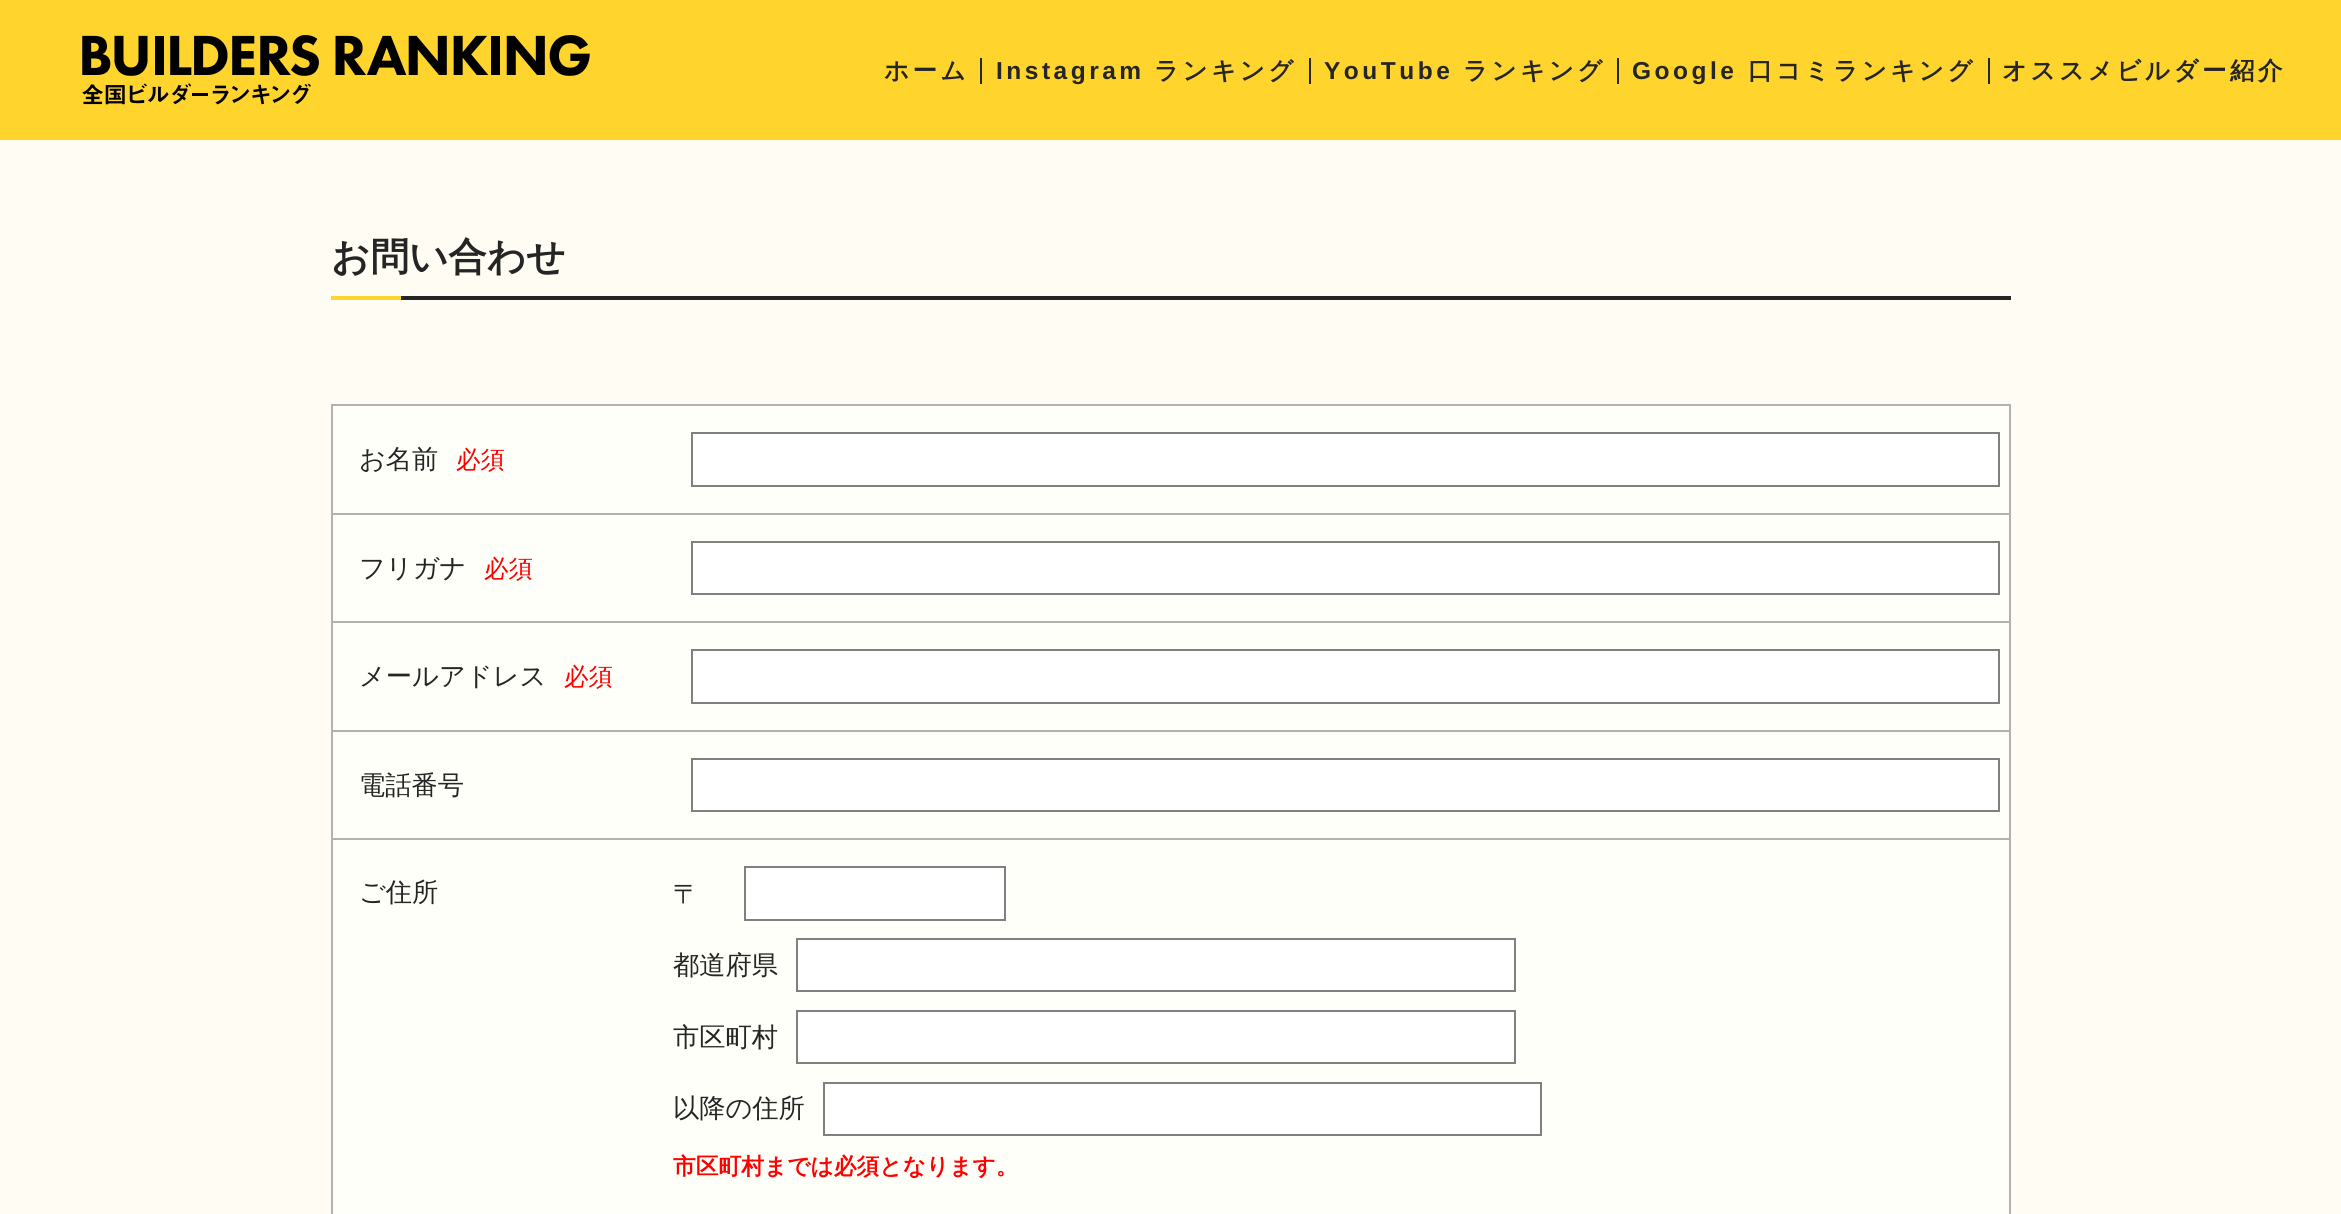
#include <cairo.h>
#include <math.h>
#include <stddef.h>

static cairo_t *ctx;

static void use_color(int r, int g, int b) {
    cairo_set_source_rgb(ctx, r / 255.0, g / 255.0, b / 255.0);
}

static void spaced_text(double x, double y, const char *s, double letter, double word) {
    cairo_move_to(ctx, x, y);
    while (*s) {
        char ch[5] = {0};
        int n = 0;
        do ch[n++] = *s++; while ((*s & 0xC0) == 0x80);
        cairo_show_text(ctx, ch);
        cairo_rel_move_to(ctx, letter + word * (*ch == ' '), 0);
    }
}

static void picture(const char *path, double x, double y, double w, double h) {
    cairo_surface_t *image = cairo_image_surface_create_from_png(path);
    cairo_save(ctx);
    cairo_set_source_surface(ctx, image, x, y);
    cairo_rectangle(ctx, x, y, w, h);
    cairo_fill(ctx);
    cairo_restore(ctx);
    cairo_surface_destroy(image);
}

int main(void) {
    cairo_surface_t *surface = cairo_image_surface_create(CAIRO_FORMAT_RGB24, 2341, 1214);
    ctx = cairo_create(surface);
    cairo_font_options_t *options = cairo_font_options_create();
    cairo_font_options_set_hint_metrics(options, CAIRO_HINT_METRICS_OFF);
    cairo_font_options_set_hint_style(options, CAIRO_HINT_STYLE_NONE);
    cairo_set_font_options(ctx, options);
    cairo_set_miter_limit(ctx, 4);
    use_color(255, 253, 243);
    cairo_paint(ctx);
    use_color(255, 212, 44);
    cairo_rectangle(ctx, 0, 0, 2341, 140);
    cairo_fill(ctx);
    picture("img1.png", 82, 35, 508, 70);
    cairo_select_font_face(ctx, "WenQuanYi Zen Hei", CAIRO_FONT_SLANT_NORMAL, CAIRO_FONT_WEIGHT_BOLD);
    cairo_set_font_size(ctx, 24.5);
    use_color(37, 37, 37);
    spaced_text(884, 79, "ホーム", 3.5, 0);
    cairo_rectangle(ctx, 980, 58, 2, 26);
    cairo_fill(ctx);
    cairo_select_font_face(ctx, "Liberation Sans", CAIRO_FONT_SLANT_NORMAL, CAIRO_FONT_WEIGHT_BOLD);
    spaced_text(996, 79, "Instagram", 3.5, 0);
    cairo_select_font_face(ctx, "WenQuanYi Zen Hei", CAIRO_FONT_SLANT_NORMAL, CAIRO_FONT_WEIGHT_BOLD);
    spaced_text(1154, 79, "ランキング", 3.5, 0);
    cairo_rectangle(ctx, 1309, 58, 2, 26);
    cairo_fill(ctx);
    cairo_select_font_face(ctx, "Liberation Sans", CAIRO_FONT_SLANT_NORMAL, CAIRO_FONT_WEIGHT_BOLD);
    spaced_text(1324, 79, "YouTube", 3.5, 0);
    cairo_select_font_face(ctx, "WenQuanYi Zen Hei", CAIRO_FONT_SLANT_NORMAL, CAIRO_FONT_WEIGHT_BOLD);
    spaced_text(1463, 79, "ランキング", 3.5, 0);
    cairo_rectangle(ctx, 1617, 58, 2, 26);
    cairo_fill(ctx);
    cairo_select_font_face(ctx, "Liberation Sans", CAIRO_FONT_SLANT_NORMAL, CAIRO_FONT_WEIGHT_BOLD);
    spaced_text(1632, 79, "Google", 3.5, 0);
    cairo_select_font_face(ctx, "WenQuanYi Zen Hei", CAIRO_FONT_SLANT_NORMAL, CAIRO_FONT_WEIGHT_BOLD);
    spaced_text(1748, 79, "口コミランキング", 3.5, 0);
    cairo_rectangle(ctx, 1988, 58, 2, 26);
    cairo_fill(ctx);
    spaced_text(2002, 79, "オススメビルダー紹介", 3.5, 0);
    cairo_rectangle(ctx, 401, 296, 1610, 4);
    cairo_fill(ctx);
    cairo_set_font_size(ctx, 38.5);
    cairo_move_to(ctx, 331, 270);
    cairo_show_text(ctx, "お問い合わせ");
    use_color(255, 212, 44);
    cairo_rectangle(ctx, 331, 296, 70, 4);
    cairo_fill(ctx);
    use_color(255, 255, 250);
    cairo_rectangle(ctx, 333, 406, 1676, 808);
    cairo_fill(ctx);
    use_color(178, 178, 178);
    cairo_rectangle(ctx, 331, 404, 1680, 2);
    cairo_fill(ctx);
    cairo_rectangle(ctx, 2009, 404, 2, 810);
    cairo_fill(ctx);
    cairo_rectangle(ctx, 331, 404, 2, 810);
    cairo_fill(ctx);
    cairo_select_font_face(ctx, "WenQuanYi Zen Hei Medium", CAIRO_FONT_SLANT_NORMAL, CAIRO_FONT_WEIGHT_NORMAL);
    cairo_set_font_size(ctx, 26.25);
    use_color(37, 37, 37);
    cairo_move_to(ctx, 359, 468);
    cairo_show_text(ctx, "お名前");
    cairo_set_font_size(ctx, 24.5);
    use_color(255, 0, 0);
    cairo_move_to(ctx, 456, 468);
    cairo_show_text(ctx, "必須");
    use_color(255, 255, 255);
    cairo_rectangle(ctx, 692, 433, 1307, 53);
    cairo_fill_preserve(ctx);
    use_color(128, 128, 128);
    cairo_stroke(ctx);
    use_color(178, 178, 178);
    cairo_rectangle(ctx, 331, 513, 1680, 2);
    cairo_fill(ctx);
    cairo_set_font_size(ctx, 26.25);
    use_color(37, 37, 37);
    cairo_move_to(ctx, 359, 577);
    cairo_show_text(ctx, "フリガナ");
    cairo_set_font_size(ctx, 24.5);
    use_color(255, 0, 0);
    cairo_move_to(ctx, 484, 577);
    cairo_show_text(ctx, "必須");
    use_color(255, 255, 255);
    cairo_rectangle(ctx, 692, 542, 1307, 52);
    cairo_fill_preserve(ctx);
    use_color(128, 128, 128);
    cairo_stroke(ctx);
    use_color(178, 178, 178);
    cairo_rectangle(ctx, 331, 621, 1680, 2);
    cairo_fill(ctx);
    cairo_set_font_size(ctx, 26.25);
    use_color(37, 37, 37);
    cairo_move_to(ctx, 359, 685);
    cairo_show_text(ctx, "メールアドレス");
    cairo_set_font_size(ctx, 24.5);
    use_color(255, 0, 0);
    cairo_move_to(ctx, 564, 685);
    cairo_show_text(ctx, "必須");
    use_color(255, 255, 255);
    cairo_rectangle(ctx, 692, 650, 1307, 53);
    cairo_fill_preserve(ctx);
    use_color(128, 128, 128);
    cairo_stroke(ctx);
    use_color(178, 178, 178);
    cairo_rectangle(ctx, 331, 730, 1680, 2);
    cairo_fill(ctx);
    cairo_set_font_size(ctx, 26.25);
    use_color(37, 37, 37);
    cairo_move_to(ctx, 359, 794);
    cairo_show_text(ctx, "電話番号");
    use_color(255, 255, 255);
    cairo_rectangle(ctx, 692, 759, 1307, 52);
    cairo_fill_preserve(ctx);
    use_color(128, 128, 128);
    cairo_stroke(ctx);
    use_color(178, 178, 178);
    cairo_rectangle(ctx, 331, 838, 1680, 2);
    cairo_fill(ctx);
    use_color(37, 37, 37);
    cairo_move_to(ctx, 359, 901);
    cairo_show_text(ctx, "ご住所");
    cairo_move_to(ctx, 673, 903);
    cairo_show_text(ctx, "〒");
    use_color(255, 255, 255);
    cairo_rectangle(ctx, 745, 867, 260, 53);
    cairo_fill_preserve(ctx);
    use_color(128, 128, 128);
    cairo_stroke(ctx);
    use_color(37, 37, 37);
    cairo_move_to(ctx, 673, 974);
    cairo_show_text(ctx, "都道府県");
    use_color(255, 255, 255);
    cairo_rectangle(ctx, 797, 939, 718, 52);
    cairo_fill_preserve(ctx);
    use_color(128, 128, 128);
    cairo_stroke(ctx);
    use_color(37, 37, 37);
    cairo_move_to(ctx, 673, 1046);
    cairo_show_text(ctx, "市区町村");
    use_color(255, 255, 255);
    cairo_rectangle(ctx, 797, 1011, 718, 52);
    cairo_fill_preserve(ctx);
    use_color(128, 128, 128);
    cairo_stroke(ctx);
    use_color(37, 37, 37);
    cairo_move_to(ctx, 673, 1117);
    cairo_show_text(ctx, "以降の住所");
    use_color(255, 255, 255);
    cairo_rectangle(ctx, 824, 1083, 717, 52);
    cairo_fill_preserve(ctx);
    use_color(128, 128, 128);
    cairo_stroke(ctx);
    cairo_select_font_face(ctx, "WenQuanYi Zen Hei", CAIRO_FONT_SLANT_NORMAL, CAIRO_FONT_WEIGHT_BOLD);
    cairo_set_font_size(ctx, 22.75);
    use_color(255, 0, 0);
    cairo_move_to(ctx, 673, 1174);
    cairo_show_text(ctx, "市区町村までは必須となります。");
    cairo_surface_write_to_png(surface, "result.png");
    cairo_font_options_destroy(options);
    cairo_destroy(ctx);
    cairo_surface_destroy(surface);
    return 0;
}
